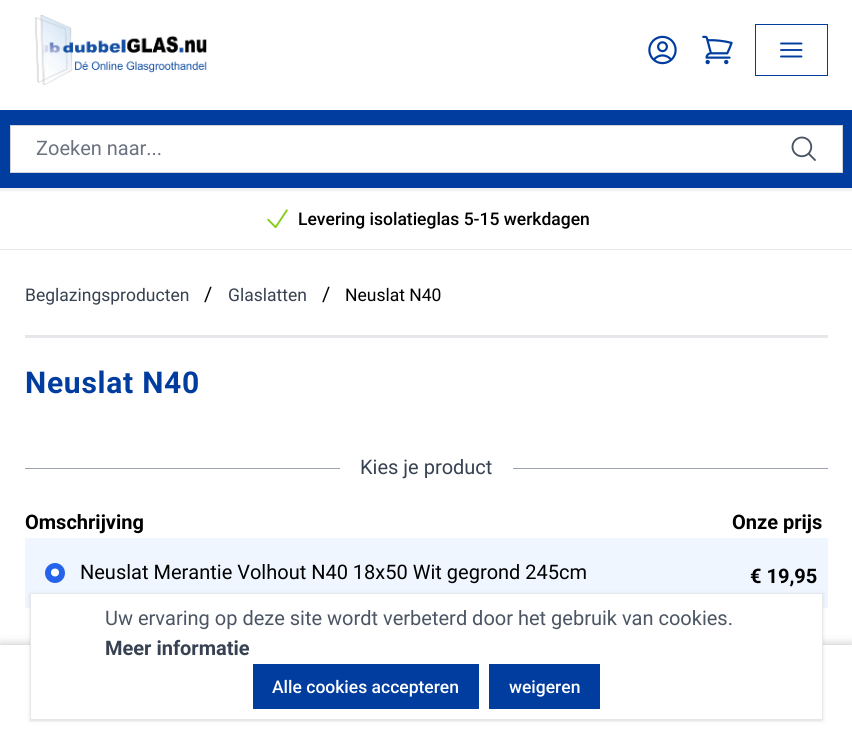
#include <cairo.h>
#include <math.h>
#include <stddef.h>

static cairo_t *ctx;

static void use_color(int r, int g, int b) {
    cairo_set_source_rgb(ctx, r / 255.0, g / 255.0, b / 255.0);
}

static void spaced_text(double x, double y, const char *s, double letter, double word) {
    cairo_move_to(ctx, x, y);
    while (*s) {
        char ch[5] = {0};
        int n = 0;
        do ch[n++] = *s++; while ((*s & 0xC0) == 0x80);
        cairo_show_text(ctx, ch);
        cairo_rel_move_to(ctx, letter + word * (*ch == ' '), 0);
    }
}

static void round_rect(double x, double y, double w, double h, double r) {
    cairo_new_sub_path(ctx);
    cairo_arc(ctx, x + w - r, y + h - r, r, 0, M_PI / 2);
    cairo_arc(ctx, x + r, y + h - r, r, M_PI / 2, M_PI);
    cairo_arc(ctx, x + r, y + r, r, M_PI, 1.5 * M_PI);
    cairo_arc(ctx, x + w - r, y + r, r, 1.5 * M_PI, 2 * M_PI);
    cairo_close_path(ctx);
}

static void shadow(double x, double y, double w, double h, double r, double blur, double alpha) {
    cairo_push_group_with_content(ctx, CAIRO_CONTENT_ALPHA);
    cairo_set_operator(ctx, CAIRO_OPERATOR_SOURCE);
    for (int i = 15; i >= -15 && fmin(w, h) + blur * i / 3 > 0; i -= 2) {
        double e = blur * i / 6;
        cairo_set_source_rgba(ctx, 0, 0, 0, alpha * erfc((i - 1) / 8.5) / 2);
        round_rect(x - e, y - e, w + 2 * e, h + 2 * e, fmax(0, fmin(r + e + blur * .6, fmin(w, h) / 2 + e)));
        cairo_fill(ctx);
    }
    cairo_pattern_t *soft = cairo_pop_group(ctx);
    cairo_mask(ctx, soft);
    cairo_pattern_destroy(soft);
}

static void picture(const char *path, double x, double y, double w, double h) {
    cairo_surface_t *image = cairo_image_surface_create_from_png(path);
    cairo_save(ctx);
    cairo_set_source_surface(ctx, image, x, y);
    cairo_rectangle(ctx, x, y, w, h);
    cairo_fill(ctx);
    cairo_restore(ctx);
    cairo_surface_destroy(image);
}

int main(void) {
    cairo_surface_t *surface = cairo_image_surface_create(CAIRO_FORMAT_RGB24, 852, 730);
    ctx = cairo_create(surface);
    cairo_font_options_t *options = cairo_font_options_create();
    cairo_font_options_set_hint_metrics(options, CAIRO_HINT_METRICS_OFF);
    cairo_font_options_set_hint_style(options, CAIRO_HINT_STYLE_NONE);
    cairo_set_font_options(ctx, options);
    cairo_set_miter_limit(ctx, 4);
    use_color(255, 255, 255);
    cairo_paint(ctx);
    cairo_save(ctx);
    cairo_rectangle(ctx, 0, 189, 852, 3);
    cairo_clip(ctx);
    use_color(0, 0, 0);
    shadow(0, 1, 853, 189, 0, 2, 0.1);
    cairo_restore(ctx);
    use_color(243, 244, 246);
    cairo_rectangle(ctx, 0, 188, 852, 1);
    cairo_fill(ctx);
    picture("img1.png", 35, 15, 172, 70);
    picture("img2.png", 648, 35, 29, 30);
    picture("img3.png", 702, 35, 31, 30);
    cairo_rectangle(ctx, 755.5, 24.5, 72, 51);
    use_color(1, 61, 159);
    cairo_set_line_width(ctx, 1);
    cairo_stroke(ctx);
    cairo_new_path(ctx);
    cairo_move_to(ctx, 781, 43.5);
    cairo_line_to(ctx, 801.5, 43.5);
    cairo_move_to(ctx, 781, 50);
    cairo_line_to(ctx, 801.5, 50);
    cairo_move_to(ctx, 781, 56.5);
    cairo_line_to(ctx, 801.5, 56.5);
    cairo_set_line_width(ctx, 1.9);
    cairo_set_line_cap(ctx, CAIRO_LINE_CAP_ROUND);
    cairo_set_line_join(ctx, CAIRO_LINE_JOIN_ROUND);
    cairo_stroke(ctx);
    cairo_rectangle(ctx, 0, 110, 852, 78);
    cairo_fill(ctx);
    use_color(255, 255, 255);
    cairo_rectangle(ctx, 10.5, 125.5, 832, 47);
    cairo_fill_preserve(ctx);
    use_color(209, 213, 219);
    cairo_set_line_width(ctx, 1);
    cairo_set_line_cap(ctx, CAIRO_LINE_CAP_BUTT);
    cairo_set_line_join(ctx, CAIRO_LINE_JOIN_MITER);
    cairo_stroke(ctx);
    cairo_select_font_face(ctx, "Roboto", CAIRO_FONT_SLANT_NORMAL, CAIRO_FONT_WEIGHT_NORMAL);
    cairo_set_font_size(ctx, 20);
    use_color(107, 114, 128);
    cairo_move_to(ctx, 36, 155);
    cairo_show_text(ctx, "Zoeken naar...");
    picture("img4.png", 791, 136, 25, 25);
    use_color(229, 231, 235);
    cairo_rectangle(ctx, 0, 249, 852, 1);
    cairo_fill(ctx);
    picture("img5.png", 267, 209, 21, 20);
    cairo_select_font_face(ctx, "Roboto Medium", CAIRO_FONT_SLANT_NORMAL, CAIRO_FONT_WEIGHT_NORMAL);
    cairo_set_font_size(ctx, 17.5);
    use_color(0, 0, 0);
    cairo_move_to(ctx, 298, 225);
    cairo_show_text(ctx, "Levering isolatieglas 5-15 werkdagen");
    use_color(229, 231, 235);
    cairo_rectangle(ctx, 25, 335, 803, 3);
    cairo_fill(ctx);
    cairo_select_font_face(ctx, "Roboto", CAIRO_FONT_SLANT_NORMAL, CAIRO_FONT_WEIGHT_NORMAL);
    use_color(55, 65, 81);
    cairo_move_to(ctx, 25, 301);
    cairo_show_text(ctx, "Beglazingsproducten");
    cairo_set_font_size(ctx, 20);
    use_color(0, 0, 0);
    cairo_move_to(ctx, 204, 301);
    cairo_show_text(ctx, "/");
    cairo_set_font_size(ctx, 17.5);
    use_color(55, 65, 81);
    cairo_move_to(ctx, 228, 301);
    cairo_show_text(ctx, "Glaslatten");
    cairo_set_font_size(ctx, 20);
    use_color(0, 0, 0);
    cairo_move_to(ctx, 322, 301);
    cairo_show_text(ctx, "/");
    cairo_set_font_size(ctx, 17.5);
    cairo_move_to(ctx, 345, 301);
    cairo_show_text(ctx, "Neuslat N40");
    cairo_select_font_face(ctx, "Roboto", CAIRO_FONT_SLANT_NORMAL, CAIRO_FONT_WEIGHT_BOLD);
    cairo_set_font_size(ctx, 30);
    use_color(1, 61, 159);
    spaced_text(25, 393, "Neuslat N40", 0.75, 0);
    use_color(156, 163, 175);
    cairo_rectangle(ctx, 25, 468, 315, 1);
    cairo_fill(ctx);
    cairo_select_font_face(ctx, "Roboto", CAIRO_FONT_SLANT_NORMAL, CAIRO_FONT_WEIGHT_NORMAL);
    cairo_set_font_size(ctx, 20);
    use_color(55, 65, 81);
    cairo_move_to(ctx, 360, 474);
    cairo_show_text(ctx, "Kies je product");
    use_color(156, 163, 175);
    cairo_rectangle(ctx, 513, 468, 315, 1);
    cairo_fill(ctx);
    cairo_select_font_face(ctx, "Roboto", CAIRO_FONT_SLANT_NORMAL, CAIRO_FONT_WEIGHT_BOLD);
    use_color(0, 0, 0);
    cairo_move_to(ctx, 25, 529);
    cairo_show_text(ctx, "Omschrijving");
    cairo_move_to(ctx, 732, 529);
    cairo_show_text(ctx, "Onze prijs");
    use_color(239, 246, 255);
    cairo_rectangle(ctx, 25, 538, 803, 70);
    cairo_fill(ctx);
    use_color(37, 99, 235);
    cairo_arc(ctx, 55, 573, 10, 0, 2 * M_PI);
    cairo_fill(ctx);
    use_color(255, 255, 255);
    cairo_arc(ctx, 55, 572.5, 4, 0, 2 * M_PI);
    cairo_fill(ctx);
    cairo_select_font_face(ctx, "Roboto", CAIRO_FONT_SLANT_NORMAL, CAIRO_FONT_WEIGHT_NORMAL);
    use_color(0, 0, 0);
    cairo_move_to(ctx, 80, 579);
    cairo_show_text(ctx, "Neuslat Merantie Volhout N40 18x50 Wit gegrond 245cm");
    cairo_select_font_face(ctx, "Roboto", CAIRO_FONT_SLANT_NORMAL, CAIRO_FONT_WEIGHT_BOLD);
    cairo_move_to(ctx, 750, 583);
    cairo_show_text(ctx, "€ 19,95");
    use_color(0, 0, 0);
    shadow(0, 645, 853, 85, 0, 5, 0.25);
    use_color(255, 255, 255);
    cairo_rectangle(ctx, 0, 645, 852, 85);
    cairo_fill(ctx);
    use_color(0, 0, 0);
    shadow(31, 595, 790, 125, 0, 1, 0.1);
    shadow(30, 594, 793, 127, 0, 2, 0.1);
    use_color(255, 255, 255);
    cairo_rectangle(ctx, 30.5, 593.5, 792, 126);
    cairo_fill_preserve(ctx);
    use_color(229, 231, 235);
    cairo_stroke(ctx);
    cairo_select_font_face(ctx, "Roboto", CAIRO_FONT_SLANT_NORMAL, CAIRO_FONT_WEIGHT_NORMAL);
    use_color(75, 85, 99);
    cairo_move_to(ctx, 105, 625);
    cairo_show_text(ctx, "Uw ervaring op deze site wordt verbeterd door het gebruik van cookies.");
    cairo_select_font_face(ctx, "Roboto", CAIRO_FONT_SLANT_NORMAL, CAIRO_FONT_WEIGHT_BOLD);
    use_color(55, 65, 81);
    cairo_move_to(ctx, 105, 655);
    cairo_show_text(ctx, "Meer informatie");
    use_color(1, 61, 159);
    cairo_rectangle(ctx, 253, 664, 226, 45);
    cairo_fill(ctx);
    cairo_select_font_face(ctx, "Roboto Medium", CAIRO_FONT_SLANT_NORMAL, CAIRO_FONT_WEIGHT_NORMAL);
    cairo_set_font_size(ctx, 17.5);
    use_color(255, 255, 255);
    cairo_move_to(ctx, 272, 693);
    cairo_show_text(ctx, "Alle cookies accepteren");
    use_color(1, 61, 159);
    cairo_rectangle(ctx, 489, 664, 111, 45);
    cairo_fill(ctx);
    use_color(255, 255, 255);
    cairo_move_to(ctx, 509, 693);
    cairo_show_text(ctx, "weigeren");
    cairo_surface_write_to_png(surface, "result.png");
    cairo_font_options_destroy(options);
    cairo_destroy(ctx);
    cairo_surface_destroy(surface);
    return 0;
}
